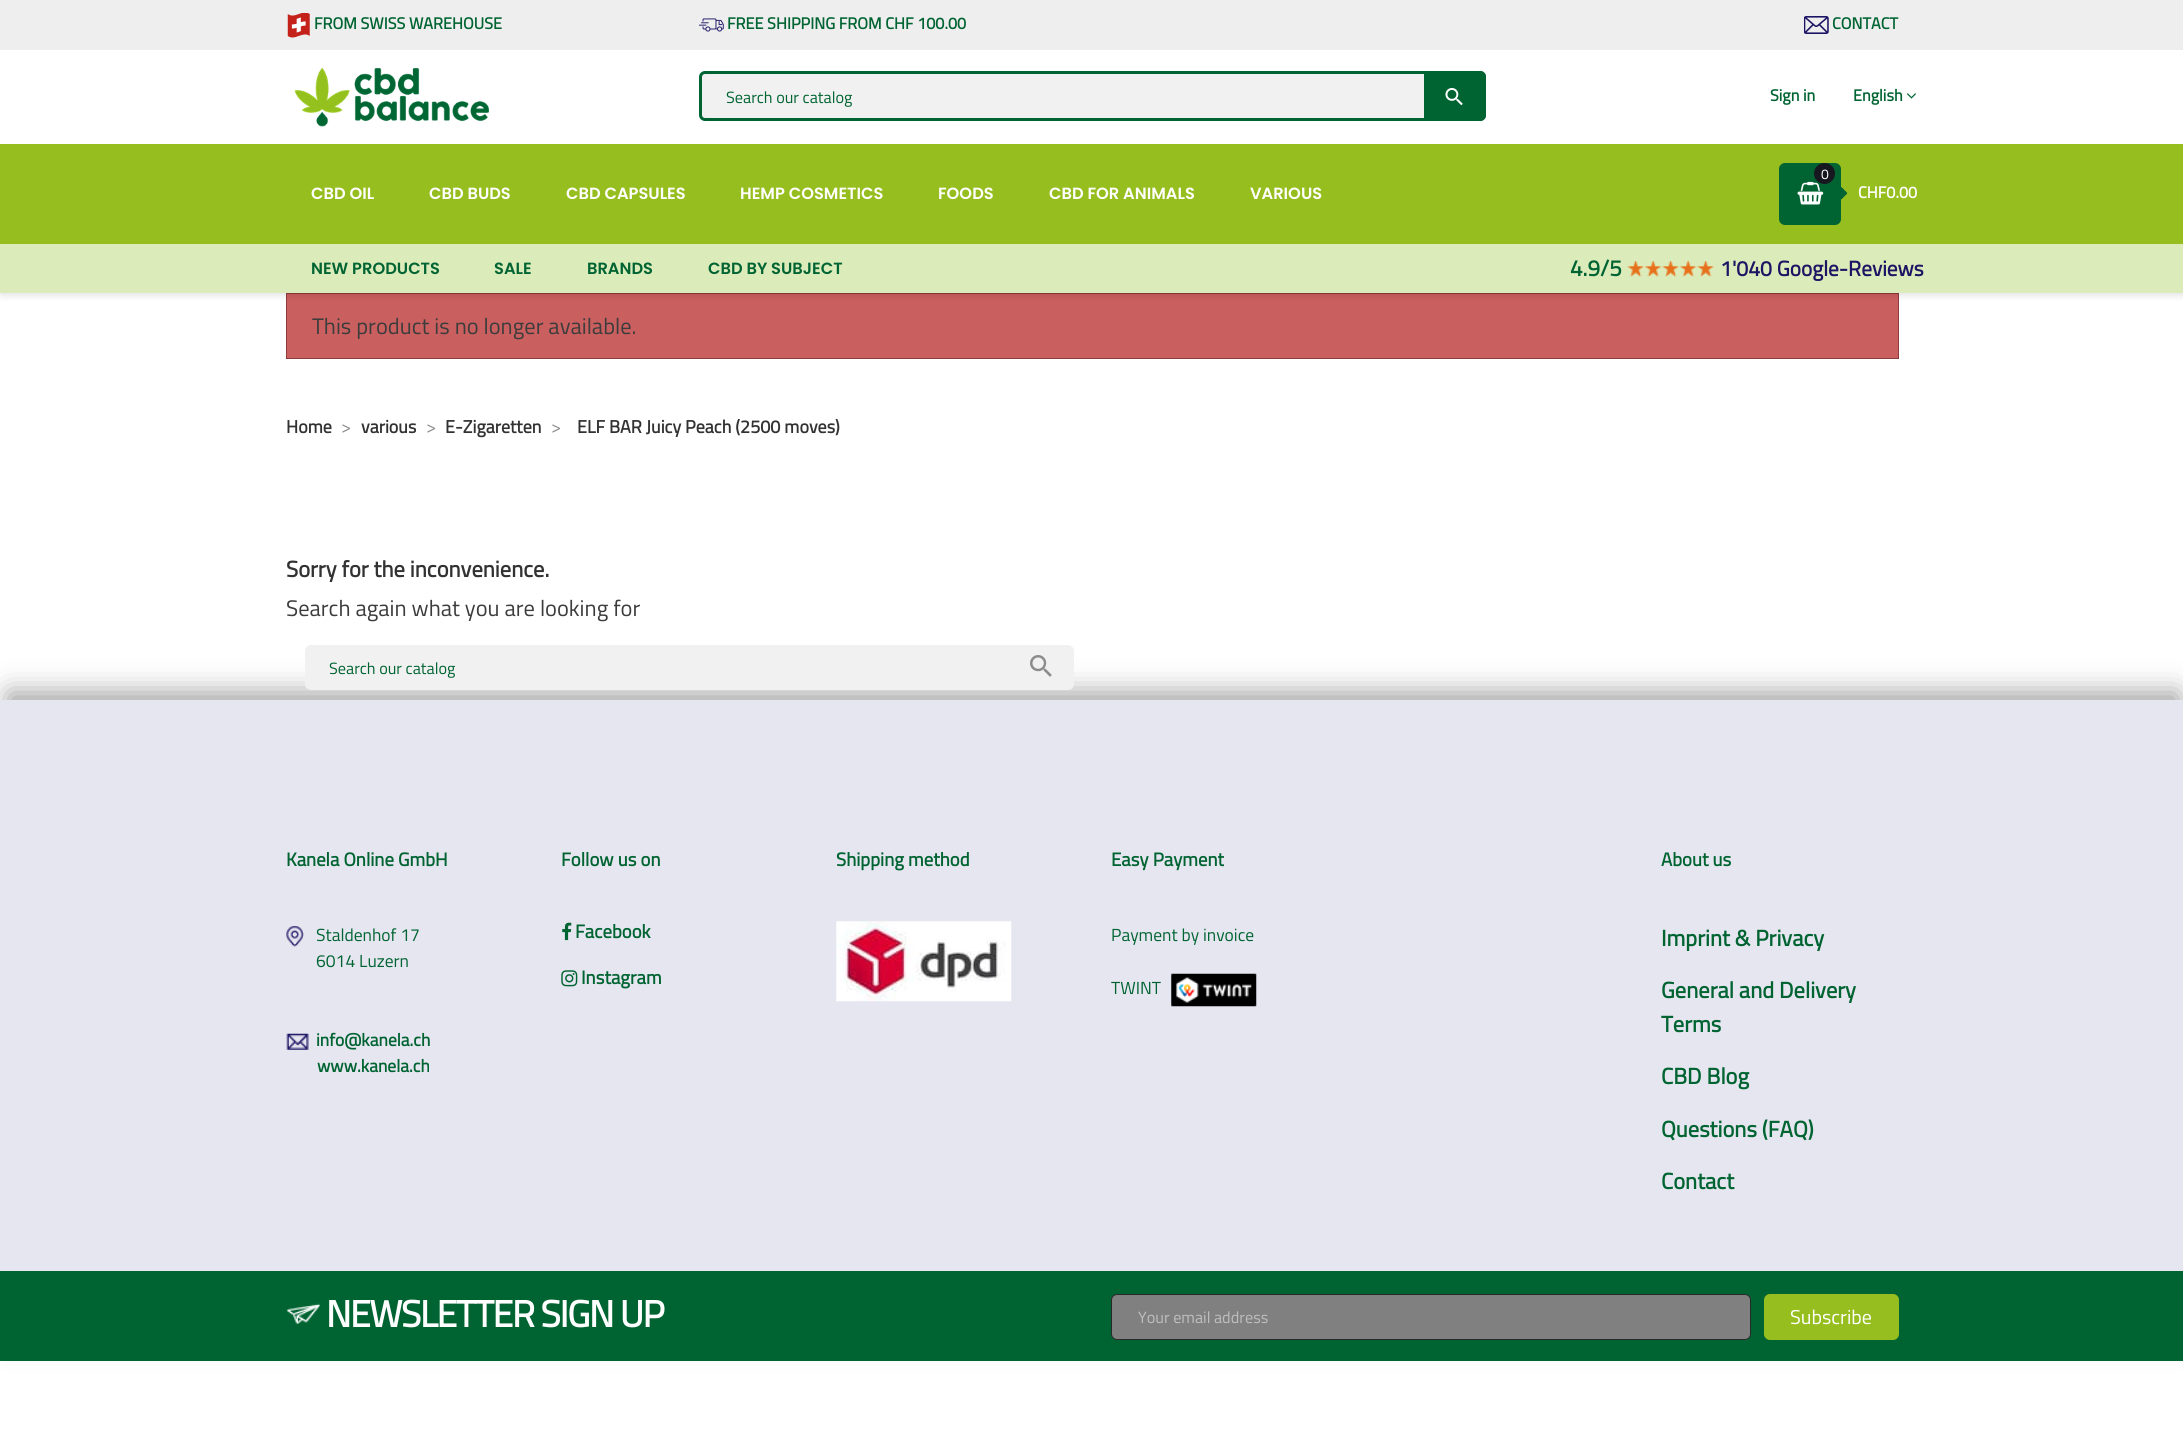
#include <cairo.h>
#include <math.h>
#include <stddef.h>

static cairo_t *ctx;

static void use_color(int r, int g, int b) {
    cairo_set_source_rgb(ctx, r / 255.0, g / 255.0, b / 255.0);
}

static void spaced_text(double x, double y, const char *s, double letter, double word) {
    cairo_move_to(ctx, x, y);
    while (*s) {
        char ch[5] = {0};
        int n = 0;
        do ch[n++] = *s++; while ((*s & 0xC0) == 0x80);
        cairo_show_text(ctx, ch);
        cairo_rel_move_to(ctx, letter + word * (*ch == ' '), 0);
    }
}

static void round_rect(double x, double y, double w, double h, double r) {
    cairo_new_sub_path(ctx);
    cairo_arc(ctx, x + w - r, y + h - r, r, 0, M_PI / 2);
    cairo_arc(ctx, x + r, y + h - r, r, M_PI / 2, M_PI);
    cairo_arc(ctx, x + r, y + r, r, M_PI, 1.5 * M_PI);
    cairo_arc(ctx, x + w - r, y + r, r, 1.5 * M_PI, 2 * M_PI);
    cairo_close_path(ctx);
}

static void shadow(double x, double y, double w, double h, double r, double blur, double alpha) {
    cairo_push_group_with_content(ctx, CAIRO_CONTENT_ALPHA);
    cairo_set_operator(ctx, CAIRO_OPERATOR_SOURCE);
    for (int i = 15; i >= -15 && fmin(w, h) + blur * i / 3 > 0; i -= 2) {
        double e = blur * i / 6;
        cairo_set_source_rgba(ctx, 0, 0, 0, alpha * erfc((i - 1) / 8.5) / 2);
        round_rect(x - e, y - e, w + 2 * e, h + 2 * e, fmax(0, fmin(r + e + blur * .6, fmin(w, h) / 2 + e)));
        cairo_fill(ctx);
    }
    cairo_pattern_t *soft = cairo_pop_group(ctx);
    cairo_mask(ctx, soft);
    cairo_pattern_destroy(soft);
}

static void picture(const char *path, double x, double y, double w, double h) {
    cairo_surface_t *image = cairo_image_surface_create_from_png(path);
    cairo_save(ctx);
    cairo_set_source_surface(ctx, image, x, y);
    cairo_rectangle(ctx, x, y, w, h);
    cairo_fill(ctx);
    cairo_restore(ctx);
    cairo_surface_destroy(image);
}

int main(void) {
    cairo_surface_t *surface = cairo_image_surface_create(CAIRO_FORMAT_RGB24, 2183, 1438);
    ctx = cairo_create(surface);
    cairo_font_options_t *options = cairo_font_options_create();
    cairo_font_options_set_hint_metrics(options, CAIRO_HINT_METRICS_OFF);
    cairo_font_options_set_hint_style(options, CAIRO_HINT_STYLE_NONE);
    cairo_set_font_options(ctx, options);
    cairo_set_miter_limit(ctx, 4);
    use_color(255, 255, 255);
    cairo_paint(ctx);
    use_color(238, 238, 238);
    cairo_rectangle(ctx, 0, 0, 2183, 50);
    cairo_fill(ctx);
    picture("img1.png", 287, 13, 23, 25);
    cairo_select_font_face(ctx, "Titillium Web", CAIRO_FONT_SLANT_NORMAL, CAIRO_FONT_WEIGHT_BOLD);
    cairo_set_font_size(ctx, 16.25);
    use_color(0, 100, 50);
    cairo_move_to(ctx, 314, 29);
    cairo_show_text(ctx, "FROM SWISS WAREHOUSE");
    picture("img2.png", 699, 18, 25, 14);
    cairo_move_to(ctx, 727, 29);
    cairo_show_text(ctx, "FREE SHIPPING FROM CHF 100.00");
    picture("img3.png", 1804, 16, 25, 18);
    cairo_move_to(ctx, 1832, 29);
    cairo_show_text(ctx, "CONTACT");
    use_color(202, 95, 95);
    cairo_rectangle(ctx, 286.5, 293.5, 1612, 65);
    cairo_fill_preserve(ctx);
    use_color(142, 59, 59);
    cairo_set_line_width(ctx, 1);
    cairo_stroke(ctx);
    use_color(0, 0, 0);
    shadow(1, 145, 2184, 149, 0, 4.5, 0.15);
    use_color(255, 255, 255);
    cairo_rectangle(ctx, 0, 138, 2183, 6);
    cairo_fill(ctx);
    picture("img4.png", 294, 67, 195, 60);
    use_color(241, 241, 241);
    round_rect(700.5, 72.5, 784, 47, 4.5);
    cairo_fill_preserve(ctx);
    use_color(0, 100, 50);
    cairo_set_line_width(ctx, 3);
    cairo_stroke(ctx);
    cairo_select_font_face(ctx, "Titillium Web", CAIRO_FONT_SLANT_NORMAL, CAIRO_FONT_WEIGHT_NORMAL);
    cairo_move_to(ctx, 726, 103);
    cairo_show_text(ctx, "Search our catalog");
    cairo_new_path(ctx);
    cairo_move_to(ctx, 1424, 71);
    cairo_line_to(ctx, 1480, 71);
    cairo_curve_to(ctx, 1483.5, 71, 1486, 73.5, 1486, 77);
    cairo_line_to(ctx, 1486, 115);
    cairo_curve_to(ctx, 1486, 118.5, 1483.5, 121, 1480, 121);
    cairo_line_to(ctx, 1424, 121);
    cairo_close_path(ctx);
    cairo_fill(ctx);
    picture("img5.png", 1445, 88, 18, 18);
    cairo_select_font_face(ctx, "Titillium Web", CAIRO_FONT_SLANT_NORMAL, CAIRO_FONT_WEIGHT_BOLD);
    cairo_move_to(ctx, 1770, 101);
    cairo_show_text(ctx, "Sign in");
    cairo_move_to(ctx, 1853, 101);
    cairo_show_text(ctx, "English");
    picture("img6.png", 1907, 93, 9, 6);
    use_color(150, 190, 30);
    cairo_rectangle(ctx, 0, 144, 2183, 100);
    cairo_fill(ctx);
    cairo_select_font_face(ctx, "Poppins SemiBold", CAIRO_FONT_SLANT_NORMAL, CAIRO_FONT_WEIGHT_NORMAL);
    use_color(255, 255, 255);
    cairo_move_to(ctx, 311, 199);
    cairo_show_text(ctx, "CBD OIL");
    cairo_move_to(ctx, 429, 199);
    cairo_show_text(ctx, "CBD BUDS");
    cairo_move_to(ctx, 566, 199);
    cairo_show_text(ctx, "CBD CAPSULES");
    cairo_move_to(ctx, 740, 199);
    cairo_show_text(ctx, "HEMP COSMETICS");
    cairo_move_to(ctx, 938, 199);
    cairo_show_text(ctx, "FOODS");
    cairo_move_to(ctx, 1049, 199);
    cairo_show_text(ctx, "CBD FOR ANIMALS");
    cairo_move_to(ctx, 1250, 199);
    cairo_show_text(ctx, "VARIOUS");
    use_color(0, 100, 50);
    round_rect(1779, 163, 62, 62, 6);
    cairo_fill(ctx);
    picture("img7.png", 1797, 181, 27, 24);
    picture("img8.png", 1841, 187, 7, 13);
    use_color(23, 23, 32);
    cairo_arc(ctx, 1824.5, 173.5, 10.5, 0, 2 * M_PI);
    cairo_fill(ctx);
    cairo_select_font_face(ctx, "Titillium Web", CAIRO_FONT_SLANT_NORMAL, CAIRO_FONT_WEIGHT_NORMAL);
    cairo_set_font_size(ctx, 14);
    use_color(255, 255, 255);
    cairo_move_to(ctx, 1821, 179);
    cairo_show_text(ctx, "0");
    cairo_select_font_face(ctx, "Titillium Web", CAIRO_FONT_SLANT_NORMAL, CAIRO_FONT_WEIGHT_BOLD);
    cairo_set_font_size(ctx, 16.25);
    cairo_move_to(ctx, 1858, 198);
    cairo_show_text(ctx, "CHF0.00");
    use_color(219, 235, 186);
    cairo_rectangle(ctx, 0, 244, 2183, 49);
    cairo_fill(ctx);
    cairo_select_font_face(ctx, "Poppins SemiBold", CAIRO_FONT_SLANT_NORMAL, CAIRO_FONT_WEIGHT_NORMAL);
    use_color(0, 100, 50);
    cairo_move_to(ctx, 311, 274);
    cairo_show_text(ctx, "NEW PRODUCTS");
    cairo_move_to(ctx, 494, 274);
    cairo_show_text(ctx, "SALE");
    cairo_move_to(ctx, 587, 274);
    cairo_show_text(ctx, "BRANDS");
    cairo_move_to(ctx, 708, 274);
    cairo_show_text(ctx, "CBD BY SUBJECT");
    cairo_select_font_face(ctx, "Titillium Web", CAIRO_FONT_SLANT_NORMAL, CAIRO_FONT_WEIGHT_BOLD);
    cairo_set_font_size(ctx, 22.5);
    cairo_move_to(ctx, 1570, 276);
    cairo_show_text(ctx, "4.9/5");
    picture("img9.png", 1627, 261, 17, 16);
    picture("img10.png", 1645, 261, 17, 16);
    picture("img9.png", 1662, 261, 17, 16);
    picture("img10.png", 1680, 261, 17, 16);
    picture("img11.png", 1697, 261, 17, 16);
    cairo_set_font_size(ctx, 21.25);
    use_color(30, 20, 100);
    cairo_move_to(ctx, 1720, 276);
    cairo_show_text(ctx, "1'040 Google-Reviews");
    cairo_select_font_face(ctx, "Titillium Web", CAIRO_FONT_SLANT_NORMAL, CAIRO_FONT_WEIGHT_NORMAL);
    cairo_set_font_size(ctx, 22.5);
    use_color(60, 60, 60);
    cairo_move_to(ctx, 312, 334);
    cairo_show_text(ctx, "This product is no longer available.");
    cairo_select_font_face(ctx, "Titillium Web", CAIRO_FONT_SLANT_NORMAL, CAIRO_FONT_WEIGHT_BOLD);
    cairo_set_font_size(ctx, 18);
    use_color(50, 50, 50);
    cairo_move_to(ctx, 286, 433);
    cairo_show_text(ctx, "Home");
    cairo_select_font_face(ctx, "Titillium Web", CAIRO_FONT_SLANT_NORMAL, CAIRO_FONT_WEIGHT_NORMAL);
    use_color(140, 140, 140);
    cairo_move_to(ctx, 341, 433);
    cairo_show_text(ctx, ">");
    cairo_select_font_face(ctx, "Titillium Web", CAIRO_FONT_SLANT_NORMAL, CAIRO_FONT_WEIGHT_BOLD);
    use_color(50, 50, 50);
    cairo_move_to(ctx, 361, 433);
    cairo_show_text(ctx, "various");
    cairo_select_font_face(ctx, "Titillium Web", CAIRO_FONT_SLANT_NORMAL, CAIRO_FONT_WEIGHT_NORMAL);
    use_color(140, 140, 140);
    cairo_move_to(ctx, 426, 433);
    cairo_show_text(ctx, ">");
    cairo_select_font_face(ctx, "Titillium Web", CAIRO_FONT_SLANT_NORMAL, CAIRO_FONT_WEIGHT_BOLD);
    use_color(50, 50, 50);
    cairo_move_to(ctx, 445, 433);
    cairo_show_text(ctx, "E-Zigaretten");
    cairo_select_font_face(ctx, "Titillium Web", CAIRO_FONT_SLANT_NORMAL, CAIRO_FONT_WEIGHT_NORMAL);
    use_color(140, 140, 140);
    cairo_move_to(ctx, 551, 433);
    cairo_show_text(ctx, ">");
    cairo_select_font_face(ctx, "Titillium Web", CAIRO_FONT_SLANT_NORMAL, CAIRO_FONT_WEIGHT_BOLD);
    use_color(50, 50, 50);
    cairo_move_to(ctx, 577, 433);
    cairo_show_text(ctx, "ELF BAR Juicy Peach (2500 moves)");
    cairo_set_font_size(ctx, 22.5);
    cairo_move_to(ctx, 286, 577);
    cairo_show_text(ctx, "Sorry for the inconvenience.");
    cairo_select_font_face(ctx, "Titillium Web", CAIRO_FONT_SLANT_NORMAL, CAIRO_FONT_WEIGHT_NORMAL);
    use_color(60, 60, 60);
    cairo_move_to(ctx, 286, 616);
    cairo_show_text(ctx, "Search again what you are looking for");
    use_color(117, 117, 117);
    shadow(9, 693, 2169, 646, 0, 14, 0.71);
    use_color(241, 241, 241);
    round_rect(305, 645, 769, 45, 6);
    cairo_fill(ctx);
    cairo_set_font_size(ctx, 16.25);
    use_color(0, 100, 50);
    cairo_move_to(ctx, 329, 674);
    cairo_show_text(ctx, "Search our catalog");
    picture("img12.png", 1030, 655, 22, 22);
    use_color(230, 230, 240);
    cairo_rectangle(ctx, 0, 700, 2183, 571);
    cairo_fill(ctx);
    cairo_select_font_face(ctx, "Titillium Web", CAIRO_FONT_SLANT_NORMAL, CAIRO_FONT_WEIGHT_BOLD);
    cairo_set_font_size(ctx, 18.75);
    use_color(0, 100, 50);
    cairo_move_to(ctx, 286, 866);
    cairo_show_text(ctx, "Kanela Online GmbH");
    picture("img13.png", 286, 926, 18, 21);
    cairo_select_font_face(ctx, "Titillium Web", CAIRO_FONT_SLANT_NORMAL, CAIRO_FONT_WEIGHT_NORMAL);
    cairo_set_font_size(ctx, 17.5);
    cairo_move_to(ctx, 316, 941);
    cairo_show_text(ctx, "Staldenhof 17");
    cairo_move_to(ctx, 316, 967);
    cairo_show_text(ctx, "6014 Luzern");
    picture("img14.png", 286, 1033, 23, 17);
    cairo_select_font_face(ctx, "Titillium Web", CAIRO_FONT_SLANT_NORMAL, CAIRO_FONT_WEIGHT_BOLD);
    cairo_move_to(ctx, 316, 1046);
    cairo_show_text(ctx, "info@kanela.ch");
    cairo_move_to(ctx, 317, 1072);
    cairo_show_text(ctx, "www.kanela.ch");
    cairo_set_font_size(ctx, 18.75);
    cairo_move_to(ctx, 561, 866);
    cairo_show_text(ctx, "Follow us on");
    picture("img15.png", 562, 922, 10, 19);
    cairo_move_to(ctx, 575, 938);
    cairo_show_text(ctx, "Facebook");
    picture("img16.png", 561, 970, 17, 17);
    cairo_move_to(ctx, 581, 984);
    cairo_show_text(ctx, "Instagram");
    cairo_move_to(ctx, 836, 866);
    cairo_show_text(ctx, "Shipping method");
    picture("img17.png", 836, 921, 176, 81);
    cairo_move_to(ctx, 1111, 866);
    cairo_show_text(ctx, "Easy Payment");
    cairo_select_font_face(ctx, "Titillium Web", CAIRO_FONT_SLANT_NORMAL, CAIRO_FONT_WEIGHT_NORMAL);
    cairo_set_font_size(ctx, 17.5);
    cairo_move_to(ctx, 1111, 941);
    cairo_show_text(ctx, "Payment by invoice");
    cairo_move_to(ctx, 1111, 994);
    cairo_show_text(ctx, "TWINT");
    picture("img18.png", 1171, 973, 86, 34);
    cairo_select_font_face(ctx, "Titillium Web", CAIRO_FONT_SLANT_NORMAL, CAIRO_FONT_WEIGHT_BOLD);
    cairo_set_font_size(ctx, 18.75);
    cairo_move_to(ctx, 1661, 866);
    cairo_show_text(ctx, "About us");
    cairo_set_font_size(ctx, 22.5);
    cairo_move_to(ctx, 1661, 946);
    cairo_show_text(ctx, "Imprint & Privacy");
    cairo_move_to(ctx, 1661, 998);
    cairo_show_text(ctx, "General and Delivery");
    cairo_move_to(ctx, 1661, 1032);
    cairo_show_text(ctx, "Terms");
    cairo_move_to(ctx, 1661, 1084);
    cairo_show_text(ctx, "CBD Blog");
    cairo_move_to(ctx, 1661, 1137);
    cairo_show_text(ctx, "Questions (FAQ)");
    cairo_move_to(ctx, 1661, 1189);
    cairo_show_text(ctx, "Contact");
    cairo_rectangle(ctx, 0, 1271, 2183, 90);
    cairo_fill(ctx);
    picture("img19.png", 286, 1303, 34, 21);
    cairo_set_font_size(ctx, 37.5);
    use_color(255, 255, 255);
    spaced_text(326, 1327, "NEWSLETTER SIGN UP", -1.4, 0);
    use_color(128, 128, 128);
    round_rect(1111.5, 1294.5, 639, 45, 5.5);
    cairo_fill_preserve(ctx);
    use_color(41, 41, 41);
    cairo_set_line_width(ctx, 1);
    cairo_stroke(ctx);
    cairo_select_font_face(ctx, "Titillium Web", CAIRO_FONT_SLANT_NORMAL, CAIRO_FONT_WEIGHT_NORMAL);
    cairo_set_font_size(ctx, 16.25);
    use_color(190, 190, 190);
    cairo_move_to(ctx, 1138, 1323);
    cairo_show_text(ctx, "Your email address");
    use_color(150, 190, 30);
    round_rect(1764, 1294, 135, 46, 6);
    cairo_fill(ctx);
    cairo_set_font_size(ctx, 20);
    use_color(255, 255, 255);
    cairo_move_to(ctx, 1790, 1324);
    cairo_show_text(ctx, "Subscribe");
    cairo_surface_write_to_png(surface, "result.png");
    cairo_font_options_destroy(options);
    cairo_destroy(ctx);
    cairo_surface_destroy(surface);
    return 0;
}
